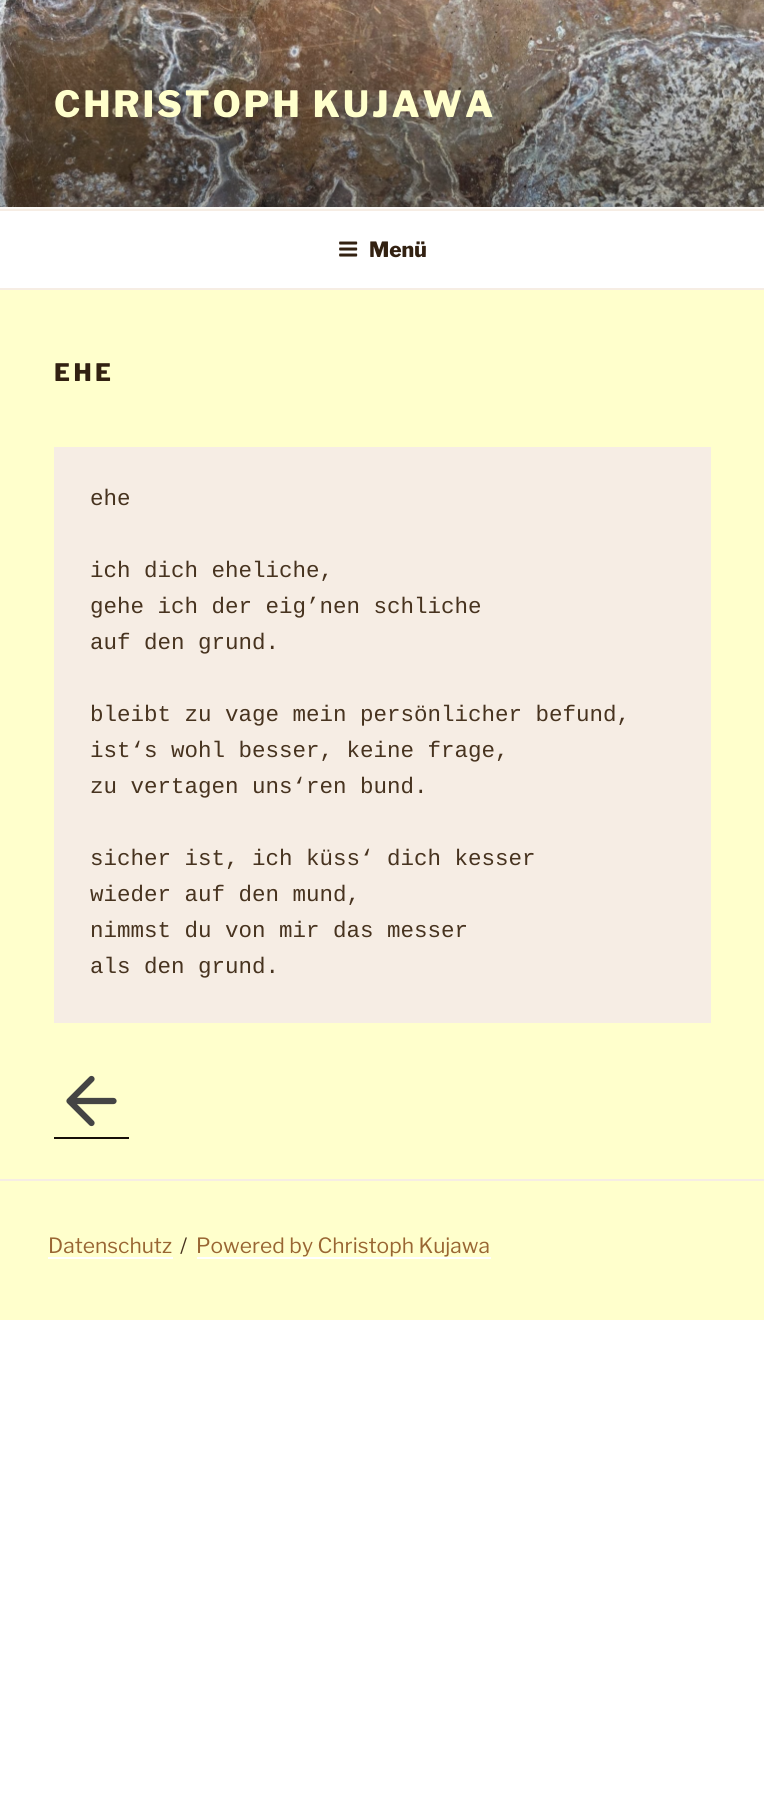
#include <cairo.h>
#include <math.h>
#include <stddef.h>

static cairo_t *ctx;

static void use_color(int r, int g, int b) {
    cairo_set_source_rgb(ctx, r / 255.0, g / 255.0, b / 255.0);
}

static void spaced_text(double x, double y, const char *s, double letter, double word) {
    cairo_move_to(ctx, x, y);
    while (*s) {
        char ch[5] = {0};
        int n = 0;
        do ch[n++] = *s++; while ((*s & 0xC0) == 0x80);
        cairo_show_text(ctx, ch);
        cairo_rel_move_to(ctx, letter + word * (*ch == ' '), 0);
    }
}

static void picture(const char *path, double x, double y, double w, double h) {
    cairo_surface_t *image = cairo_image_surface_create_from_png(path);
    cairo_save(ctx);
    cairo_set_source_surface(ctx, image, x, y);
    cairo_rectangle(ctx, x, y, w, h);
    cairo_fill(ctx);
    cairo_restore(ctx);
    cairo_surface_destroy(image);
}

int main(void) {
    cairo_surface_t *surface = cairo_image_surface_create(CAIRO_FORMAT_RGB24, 764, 1820);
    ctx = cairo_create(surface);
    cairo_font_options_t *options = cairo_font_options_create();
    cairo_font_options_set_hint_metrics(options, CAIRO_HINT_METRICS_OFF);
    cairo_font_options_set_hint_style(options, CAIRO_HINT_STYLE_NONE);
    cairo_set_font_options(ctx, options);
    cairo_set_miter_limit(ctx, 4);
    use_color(255, 255, 255);
    cairo_paint(ctx);
    use_color(252, 250, 247);
    cairo_rectangle(ctx, 0, 207, 764, 2);
    cairo_fill(ctx);
    picture("img1.png", 0, 0, 764, 207);
    cairo_select_font_face(ctx, "Libre Franklin Thin", CAIRO_FONT_SLANT_NORMAL, CAIRO_FONT_WEIGHT_NORMAL);
    cairo_set_font_size(ctx, 36);
    use_color(255, 255, 204);
    spaced_text(54, 117, "CHRISTOPH KUJAWA", 2.9, 0);
    use_color(246, 237, 228);
    cairo_rectangle(ctx, 0, 209, 764, 2);
    cairo_fill(ctx);
    cairo_rectangle(ctx, 0, 288, 764, 2);
    cairo_fill(ctx);
    picture("img2.png", 339, 241, 19, 16);
    cairo_set_font_size(ctx, 21);
    use_color(50, 33, 17);
    cairo_move_to(ctx, 369, 257);
    cairo_show_text(ctx, "Menü");
    use_color(255, 255, 204);
    cairo_rectangle(ctx, 0, 290, 764, 1030);
    cairo_fill(ctx);
    cairo_set_font_size(ctx, 24);
    use_color(50, 33, 17);
    spaced_text(54, 381, "EHE", 3.5, 0);
    use_color(246, 237, 228);
    cairo_rectangle(ctx, 54, 447, 657, 576);
    cairo_fill(ctx);
    cairo_select_font_face(ctx, "Liberation Mono", CAIRO_FONT_SLANT_NORMAL, CAIRO_FONT_WEIGHT_NORMAL);
    cairo_set_font_size(ctx, 22.5);
    use_color(71, 51, 31);
    cairo_move_to(ctx, 90, 505);
    cairo_show_text(ctx, "ehe");
    cairo_move_to(ctx, 90, 577);
    cairo_show_text(ctx, "ich dich eheliche,");
    cairo_move_to(ctx, 90, 613);
    cairo_show_text(ctx, "gehe ich der eig’nen schliche");
    cairo_move_to(ctx, 90, 649);
    cairo_show_text(ctx, "auf den grund.");
    cairo_move_to(ctx, 90, 721);
    cairo_show_text(ctx, "bleibt zu vage mein persönlicher befund,");
    cairo_move_to(ctx, 90, 757);
    cairo_show_text(ctx, "ist‘s wohl besser, keine frage,");
    cairo_move_to(ctx, 90, 793);
    cairo_show_text(ctx, "zu vertagen uns‘ren bund.");
    cairo_move_to(ctx, 90, 865);
    cairo_show_text(ctx, "sicher ist, ich küss‘ dich kesser");
    cairo_move_to(ctx, 90, 901);
    cairo_show_text(ctx, "wieder auf den mund,");
    cairo_move_to(ctx, 90, 937);
    cairo_show_text(ctx, "nimmst du von mir das messer");
    cairo_move_to(ctx, 90, 973);
    cairo_show_text(ctx, "als den grund.");
    use_color(23, 15, 8);
    cairo_rectangle(ctx, 54, 1137, 75, 2);
    cairo_fill(ctx);
    cairo_new_path(ctx);
    cairo_move_to(ctx, 113.5, 1101);
    cairo_line_to(ctx, 69.5, 1101);
    cairo_move_to(ctx, 91.5, 1123);
    cairo_line_to(ctx, 69.5, 1101);
    cairo_line_to(ctx, 91.5, 1079);
    use_color(68, 68, 68);
    cairo_set_line_width(ctx, 6.2);
    cairo_set_line_cap(ctx, CAIRO_LINE_CAP_ROUND);
    cairo_set_line_join(ctx, CAIRO_LINE_JOIN_ROUND);
    cairo_stroke(ctx);
    use_color(246, 237, 228);
    cairo_rectangle(ctx, 0, 1179, 764, 2);
    cairo_fill(ctx);
    cairo_select_font_face(ctx, "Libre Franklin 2 Thin", CAIRO_FONT_SLANT_NORMAL, CAIRO_FONT_WEIGHT_NORMAL);
    cairo_set_font_size(ctx, 21);
    use_color(153, 102, 51);
    cairo_move_to(ctx, 48, 1253);
    cairo_show_text(ctx, "Datenschutz");
    use_color(255, 255, 255);
    cairo_rectangle(ctx, 48, 1257, 125, 2);
    cairo_fill(ctx);
    use_color(71, 51, 31);
    cairo_move_to(ctx, 180, 1253);
    cairo_show_text(ctx, "/");
    use_color(153, 102, 51);
    cairo_move_to(ctx, 196, 1253);
    cairo_show_text(ctx, "Powered by Christoph Kujawa");
    use_color(255, 255, 255);
    cairo_rectangle(ctx, 197, 1257, 294, 2);
    cairo_fill(ctx);
    cairo_surface_write_to_png(surface, "result.png");
    cairo_font_options_destroy(options);
    cairo_destroy(ctx);
    cairo_surface_destroy(surface);
    return 0;
}
